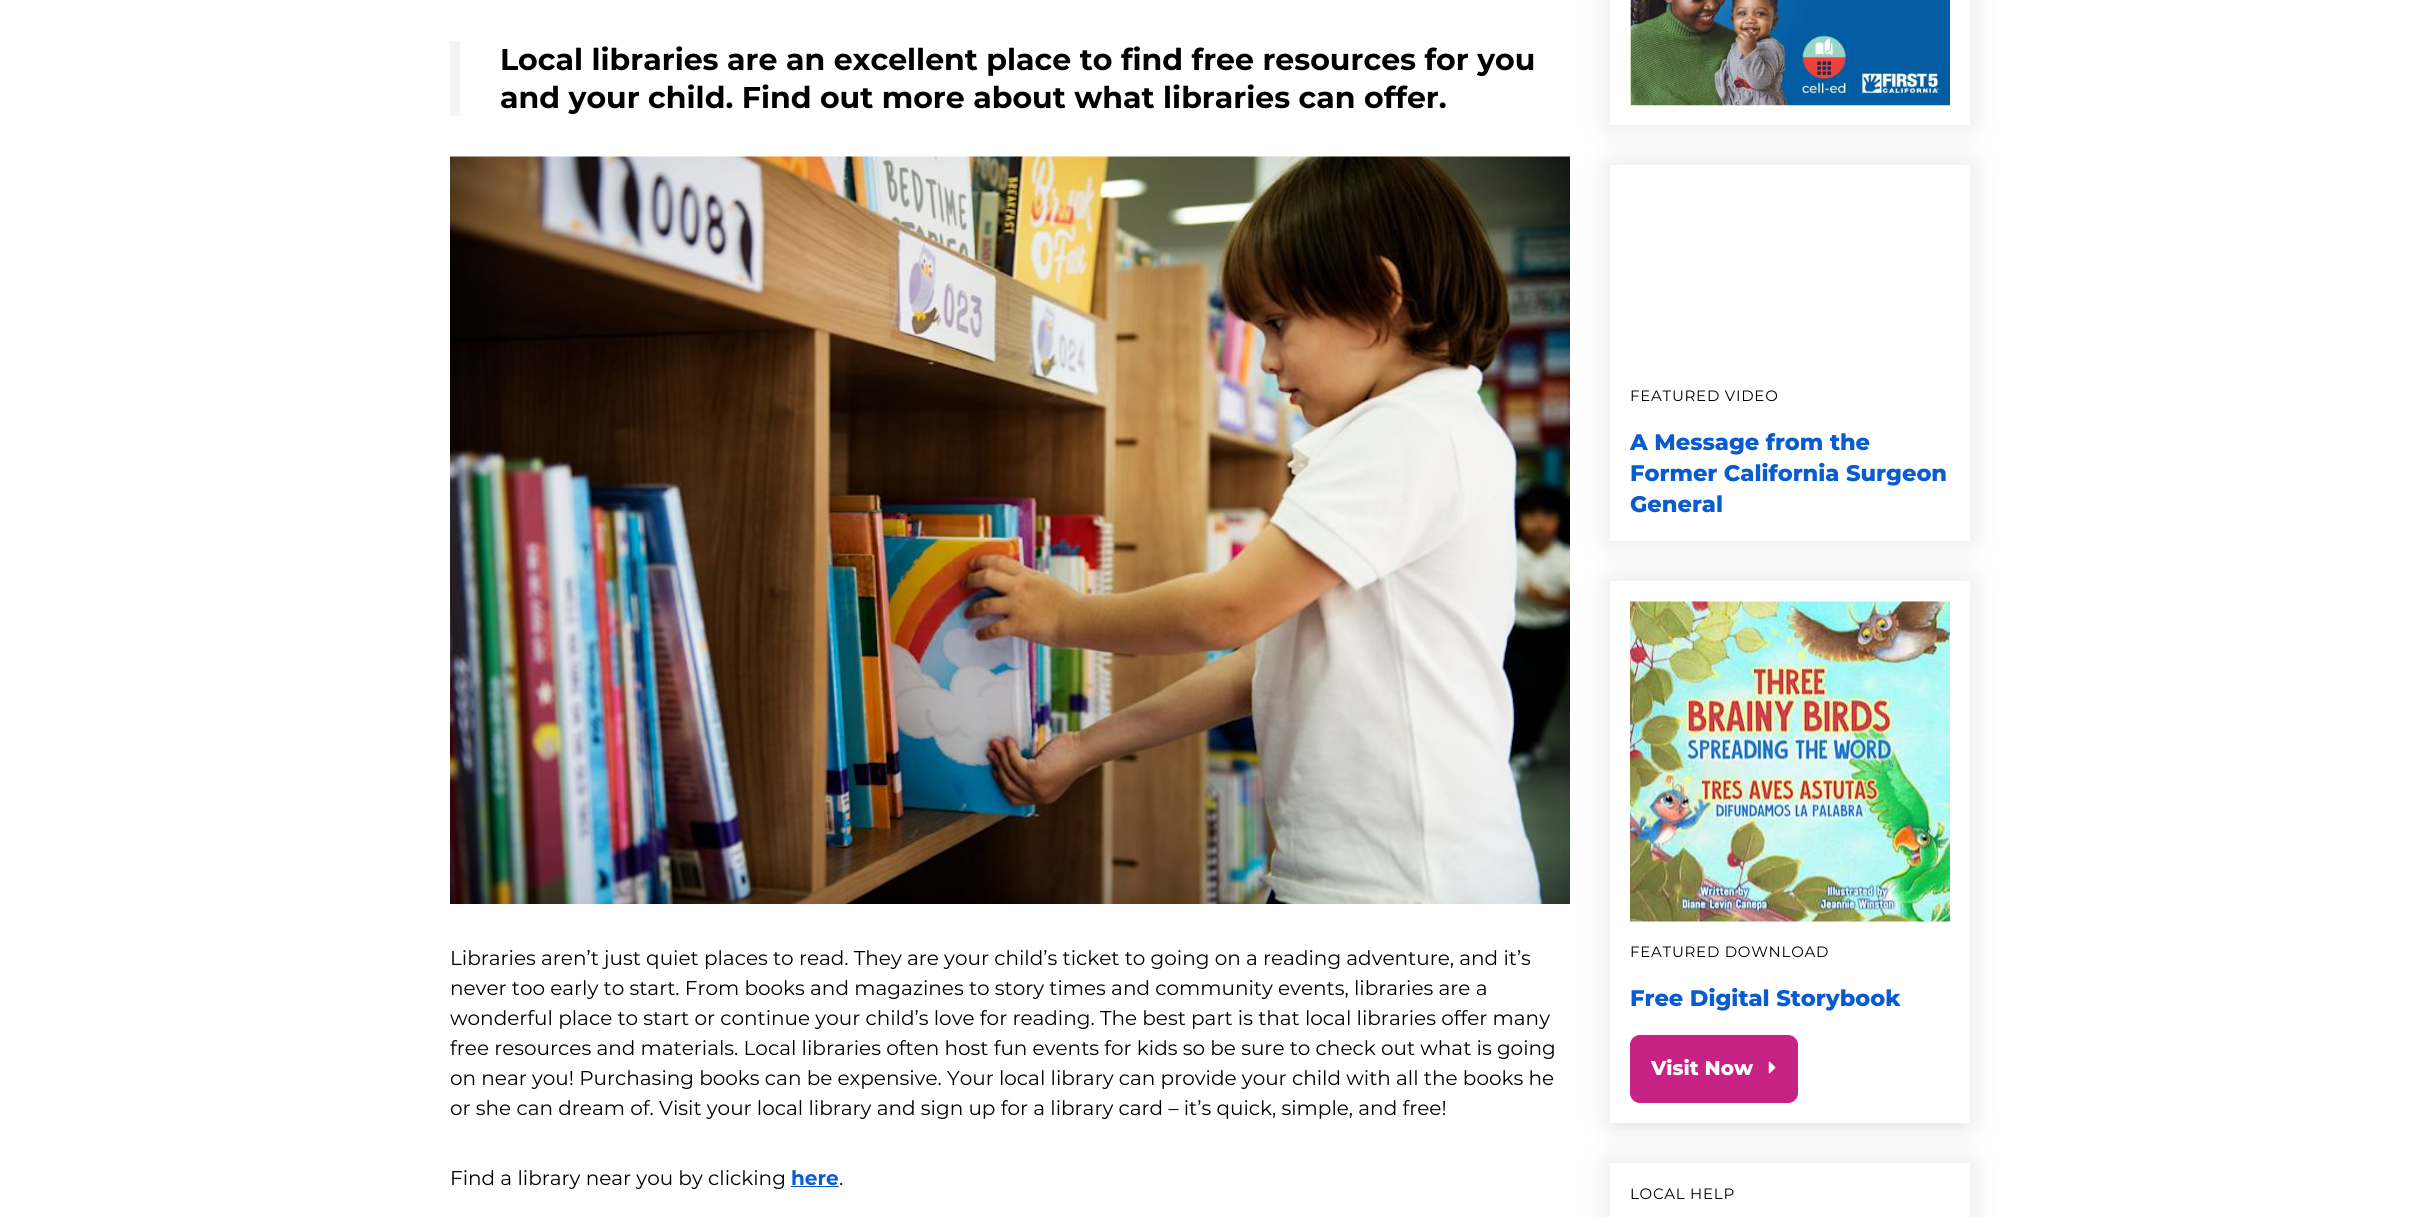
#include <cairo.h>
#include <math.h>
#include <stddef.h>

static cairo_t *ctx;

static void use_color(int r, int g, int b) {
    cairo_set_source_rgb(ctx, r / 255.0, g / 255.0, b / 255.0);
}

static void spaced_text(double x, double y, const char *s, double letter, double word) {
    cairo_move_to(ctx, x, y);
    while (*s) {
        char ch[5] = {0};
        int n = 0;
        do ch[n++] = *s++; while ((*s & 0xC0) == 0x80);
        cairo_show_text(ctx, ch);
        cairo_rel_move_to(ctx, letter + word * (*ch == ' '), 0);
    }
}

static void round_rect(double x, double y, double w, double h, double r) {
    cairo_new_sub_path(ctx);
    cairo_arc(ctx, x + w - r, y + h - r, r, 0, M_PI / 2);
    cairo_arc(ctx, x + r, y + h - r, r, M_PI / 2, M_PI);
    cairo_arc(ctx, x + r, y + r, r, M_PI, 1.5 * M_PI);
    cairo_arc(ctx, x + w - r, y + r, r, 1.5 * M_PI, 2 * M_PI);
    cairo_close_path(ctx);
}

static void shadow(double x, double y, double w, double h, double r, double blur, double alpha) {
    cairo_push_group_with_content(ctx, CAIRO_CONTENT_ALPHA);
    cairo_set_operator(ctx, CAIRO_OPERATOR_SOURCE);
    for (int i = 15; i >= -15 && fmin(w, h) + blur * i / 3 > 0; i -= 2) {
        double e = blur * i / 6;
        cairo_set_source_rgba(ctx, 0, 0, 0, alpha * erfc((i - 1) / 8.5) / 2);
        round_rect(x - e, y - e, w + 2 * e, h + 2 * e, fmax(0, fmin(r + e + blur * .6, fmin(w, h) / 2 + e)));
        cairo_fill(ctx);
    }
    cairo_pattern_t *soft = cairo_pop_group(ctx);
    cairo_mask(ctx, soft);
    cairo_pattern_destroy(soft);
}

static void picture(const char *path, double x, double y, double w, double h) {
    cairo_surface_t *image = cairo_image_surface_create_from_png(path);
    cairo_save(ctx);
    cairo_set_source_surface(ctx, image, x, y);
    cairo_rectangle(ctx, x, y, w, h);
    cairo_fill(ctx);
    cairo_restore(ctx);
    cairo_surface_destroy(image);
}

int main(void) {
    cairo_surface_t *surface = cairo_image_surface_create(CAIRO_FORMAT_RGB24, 2420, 1217);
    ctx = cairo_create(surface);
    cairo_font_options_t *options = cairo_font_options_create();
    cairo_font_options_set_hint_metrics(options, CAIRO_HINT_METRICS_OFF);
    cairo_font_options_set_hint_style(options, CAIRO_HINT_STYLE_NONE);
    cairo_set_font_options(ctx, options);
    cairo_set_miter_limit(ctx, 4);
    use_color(255, 255, 255);
    cairo_paint(ctx);
    use_color(244, 244, 244);
    cairo_rectangle(ctx, 450, 41, 10, 75);
    cairo_fill(ctx);
    cairo_select_font_face(ctx, "Montserrat", CAIRO_FONT_SLANT_NORMAL, CAIRO_FONT_WEIGHT_BOLD);
    cairo_set_font_size(ctx, 30);
    use_color(0, 0, 0);
    cairo_move_to(ctx, 500, 70);
    cairo_show_text(ctx, "Local libraries are an excellent place to find free resources for you");
    cairo_move_to(ctx, 500, 108);
    cairo_show_text(ctx, "and your child. Find out more about what libraries can offer.");
    picture("img1.png", 450, 156, 1120, 748);
    cairo_select_font_face(ctx, "Montserrat", CAIRO_FONT_SLANT_NORMAL, CAIRO_FONT_WEIGHT_NORMAL);
    cairo_set_font_size(ctx, 20);
    cairo_move_to(ctx, 450, 965);
    cairo_show_text(ctx, "Libraries aren’t just quiet places to read. They are your child’s ticket to going on a reading adventure, and it’s");
    cairo_move_to(ctx, 450, 995);
    cairo_show_text(ctx, "never too early to start. From books and magazines to story times and community events, libraries are a");
    cairo_move_to(ctx, 450, 1025);
    cairo_show_text(ctx, "wonderful place to start or continue your child’s love for reading. The best part is that local libraries offer many");
    cairo_move_to(ctx, 450, 1055);
    cairo_show_text(ctx, "free resources and materials. Local libraries often host fun events for kids so be sure to check out what is going");
    cairo_move_to(ctx, 450, 1085);
    cairo_show_text(ctx, "on near you! Purchasing books can be expensive. Your local library can provide your child with all the books he");
    cairo_move_to(ctx, 450, 1115);
    cairo_show_text(ctx, "or she can dream of. Visit your local library and sign up for a library card – it’s quick, simple, and free!");
    cairo_move_to(ctx, 450, 1185);
    cairo_show_text(ctx, "Find a library near you by clicking");
    cairo_select_font_face(ctx, "Montserrat", CAIRO_FONT_SLANT_NORMAL, CAIRO_FONT_WEIGHT_BOLD);
    use_color(9, 92, 208);
    cairo_move_to(ctx, 791, 1185);
    cairo_show_text(ctx, "here");
    cairo_rectangle(ctx, 791, 1186, 48, 1);
    cairo_fill(ctx);
    cairo_select_font_face(ctx, "Montserrat", CAIRO_FONT_SLANT_NORMAL, CAIRO_FONT_WEIGHT_NORMAL);
    use_color(0, 0, 0);
    cairo_move_to(ctx, 839, 1185);
    cairo_show_text(ctx, ".");
    cairo_save(ctx);
    cairo_set_fill_rule(ctx, CAIRO_FILL_RULE_EVEN_ODD);
    cairo_new_path(ctx);
    cairo_move_to(ctx, 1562, 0);
    cairo_line_to(ctx, 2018, 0);
    cairo_line_to(ctx, 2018, 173);
    cairo_line_to(ctx, 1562, 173);
    cairo_close_path(ctx);
    cairo_move_to(ctx, 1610, -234);
    cairo_line_to(ctx, 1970, -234);
    cairo_line_to(ctx, 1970, 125);
    cairo_line_to(ctx, 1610, 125);
    cairo_close_path(ctx);
    cairo_clip(ctx);
    use_color(0, 0, 0);
    shadow(1610, -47, 360, 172, 0, 15.5, 0.1);
    cairo_restore(ctx);
    picture("img2.png", 1630, 0, 320, 106);
    cairo_save(ctx);
    cairo_set_fill_rule(ctx, CAIRO_FILL_RULE_EVEN_ODD);
    cairo_new_path(ctx);
    cairo_move_to(ctx, 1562, 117);
    cairo_line_to(ctx, 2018, 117);
    cairo_line_to(ctx, 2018, 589);
    cairo_line_to(ctx, 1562, 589);
    cairo_close_path(ctx);
    cairo_move_to(ctx, 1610, 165);
    cairo_line_to(ctx, 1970, 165);
    cairo_line_to(ctx, 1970, 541);
    cairo_line_to(ctx, 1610, 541);
    cairo_close_path(ctx);
    cairo_clip(ctx);
    use_color(0, 0, 0);
    shadow(1610, 165, 360, 376, 0, 15.5, 0.1);
    cairo_restore(ctx);
    cairo_set_font_size(ctx, 15);
    spaced_text(1630, 401, "FEATURED VIDEO", 0.75, 0);
    cairo_select_font_face(ctx, "Montserrat ExtraBold", CAIRO_FONT_SLANT_NORMAL, CAIRO_FONT_WEIGHT_NORMAL);
    cairo_set_font_size(ctx, 22.5);
    use_color(9, 92, 208);
    cairo_move_to(ctx, 1630, 450);
    cairo_show_text(ctx, "A Message from the");
    cairo_move_to(ctx, 1630, 481);
    cairo_show_text(ctx, "Former California Surgeon");
    cairo_move_to(ctx, 1630, 512);
    cairo_show_text(ctx, "General");
    use_color(0, 0, 0);
    shadow(1616, 600, 348, 529, 0, 6, 0.04);
    shadow(1610, 581, 360, 542, 0, 15.5, 0.1);
    use_color(255, 255, 255);
    cairo_rectangle(ctx, 1610, 581, 360, 542);
    cairo_fill(ctx);
    picture("img3.png", 1630, 601, 320, 321);
    cairo_select_font_face(ctx, "Montserrat", CAIRO_FONT_SLANT_NORMAL, CAIRO_FONT_WEIGHT_NORMAL);
    cairo_set_font_size(ctx, 15);
    use_color(0, 0, 0);
    spaced_text(1630, 957, "FEATURED DOWNLOAD", 0.75, 0);
    cairo_select_font_face(ctx, "Montserrat ExtraBold", CAIRO_FONT_SLANT_NORMAL, CAIRO_FONT_WEIGHT_NORMAL);
    cairo_set_font_size(ctx, 22.5);
    use_color(9, 92, 208);
    cairo_move_to(ctx, 1630, 1006);
    cairo_show_text(ctx, "Free Digital Storybook");
    use_color(201, 34, 133);
    round_rect(1630.5, 1035.5, 167, 67, 9.5);
    cairo_fill_preserve(ctx);
    cairo_set_line_width(ctx, 1);
    cairo_stroke(ctx);
    cairo_set_font_size(ctx, 20);
    use_color(255, 255, 255);
    cairo_move_to(ctx, 1651, 1075);
    cairo_show_text(ctx, "Visit Now");
    picture("img4.png", 1768, 1061, 8, 13);
    cairo_save(ctx);
    cairo_set_fill_rule(ctx, CAIRO_FILL_RULE_EVEN_ODD);
    cairo_new_path(ctx);
    cairo_move_to(ctx, 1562, 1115);
    cairo_line_to(ctx, 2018, 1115);
    cairo_line_to(ctx, 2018, 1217);
    cairo_line_to(ctx, 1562, 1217);
    cairo_close_path(ctx);
    cairo_move_to(ctx, 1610, 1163);
    cairo_line_to(ctx, 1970, 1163);
    cairo_line_to(ctx, 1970, 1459);
    cairo_line_to(ctx, 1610, 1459);
    cairo_close_path(ctx);
    cairo_clip(ctx);
    use_color(0, 0, 0);
    shadow(1610, 1163, 360, 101, 0, 15.5, 0.1);
    cairo_restore(ctx);
    cairo_select_font_face(ctx, "Montserrat", CAIRO_FONT_SLANT_NORMAL, CAIRO_FONT_WEIGHT_NORMAL);
    cairo_set_font_size(ctx, 15);
    use_color(0, 0, 0);
    spaced_text(1630, 1199, "LOCAL HELP", 0.75, 0);
    cairo_surface_write_to_png(surface, "result.png");
    cairo_font_options_destroy(options);
    cairo_destroy(ctx);
    cairo_surface_destroy(surface);
    return 0;
}
